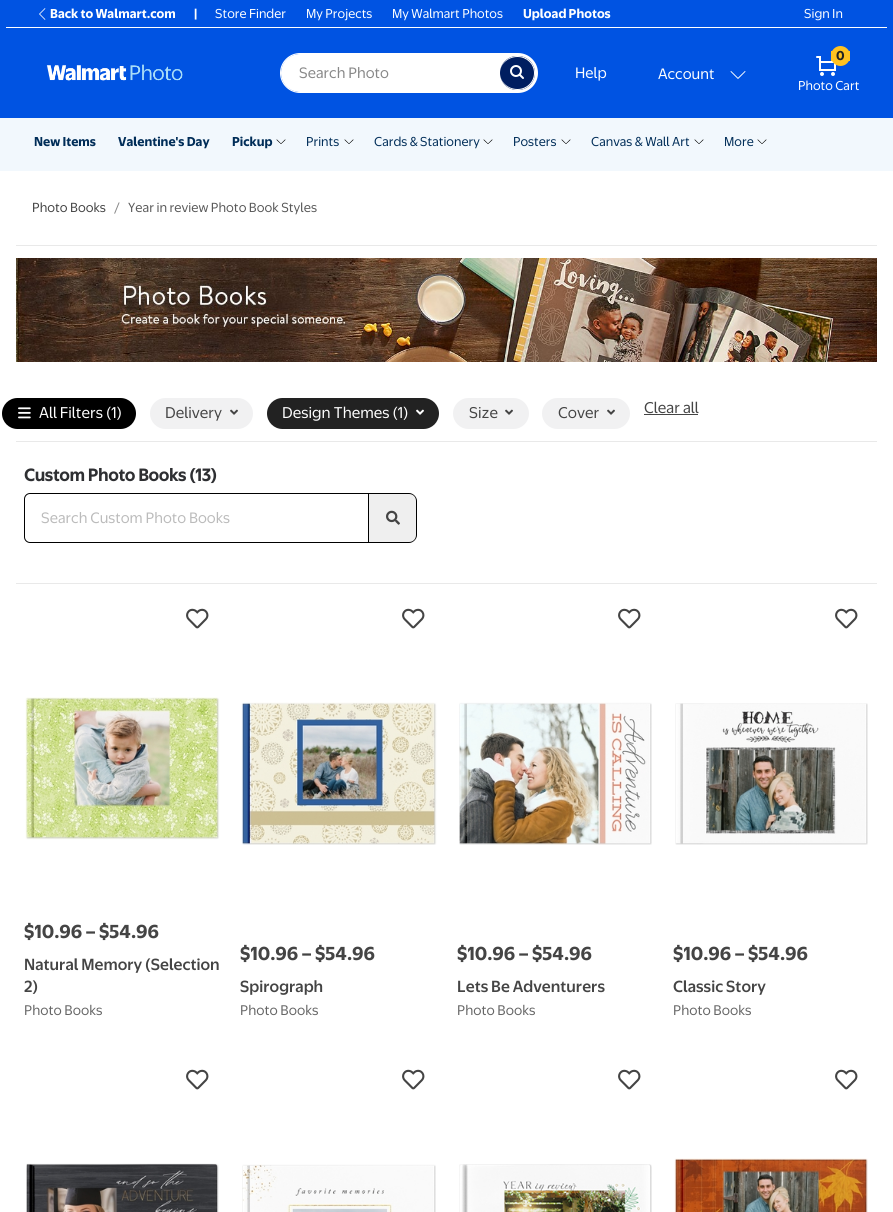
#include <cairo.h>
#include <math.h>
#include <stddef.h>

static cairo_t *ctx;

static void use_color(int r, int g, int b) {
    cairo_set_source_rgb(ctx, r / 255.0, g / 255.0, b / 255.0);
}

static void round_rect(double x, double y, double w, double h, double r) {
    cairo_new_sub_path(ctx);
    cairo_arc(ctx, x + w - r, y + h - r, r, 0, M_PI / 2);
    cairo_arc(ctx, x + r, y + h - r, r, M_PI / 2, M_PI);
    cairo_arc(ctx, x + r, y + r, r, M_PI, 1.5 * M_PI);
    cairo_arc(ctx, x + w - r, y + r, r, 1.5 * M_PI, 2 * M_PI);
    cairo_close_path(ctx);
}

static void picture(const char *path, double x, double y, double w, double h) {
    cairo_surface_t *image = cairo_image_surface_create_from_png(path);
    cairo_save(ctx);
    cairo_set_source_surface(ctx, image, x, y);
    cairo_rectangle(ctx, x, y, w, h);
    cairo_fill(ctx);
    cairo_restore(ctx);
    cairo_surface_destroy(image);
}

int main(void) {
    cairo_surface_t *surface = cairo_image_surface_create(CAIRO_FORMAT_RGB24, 893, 1212);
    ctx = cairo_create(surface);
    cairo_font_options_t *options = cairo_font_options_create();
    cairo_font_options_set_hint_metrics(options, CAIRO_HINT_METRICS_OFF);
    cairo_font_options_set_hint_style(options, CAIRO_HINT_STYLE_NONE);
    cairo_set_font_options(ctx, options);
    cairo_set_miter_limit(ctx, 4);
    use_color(255, 255, 255);
    cairo_paint(ctx);
    use_color(0, 83, 226);
    cairo_rectangle(ctx, 0, 0, 893, 118);
    cairo_fill(ctx);
    use_color(255, 255, 255);
    cairo_rectangle(ctx, 6, 27, 881, 1);
    cairo_fill(ctx);
    picture("img1.png", 39, 8, 7, 12);
    cairo_select_font_face(ctx, "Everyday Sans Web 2", CAIRO_FONT_SLANT_NORMAL, CAIRO_FONT_WEIGHT_BOLD);
    cairo_set_font_size(ctx, 12);
    cairo_move_to(ctx, 50, 18);
    cairo_show_text(ctx, "Back to Walmart.com");
    cairo_move_to(ctx, 194, 18);
    cairo_show_text(ctx, "|");
    cairo_select_font_face(ctx, "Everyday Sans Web", CAIRO_FONT_SLANT_NORMAL, CAIRO_FONT_WEIGHT_NORMAL);
    cairo_move_to(ctx, 215, 18);
    cairo_show_text(ctx, "Store Finder");
    cairo_move_to(ctx, 306, 18);
    cairo_show_text(ctx, "My Projects");
    cairo_move_to(ctx, 392, 18);
    cairo_show_text(ctx, "My Walmart Photos");
    cairo_select_font_face(ctx, "Everyday Sans Web 2", CAIRO_FONT_SLANT_NORMAL, CAIRO_FONT_WEIGHT_BOLD);
    cairo_move_to(ctx, 523, 18);
    cairo_show_text(ctx, "Upload Photos");
    cairo_select_font_face(ctx, "Everyday Sans Web", CAIRO_FONT_SLANT_NORMAL, CAIRO_FONT_WEIGHT_NORMAL);
    cairo_move_to(ctx, 804, 18);
    cairo_show_text(ctx, "Sign In");
    picture("img2.png", 46, 64, 137, 17);
    cairo_new_path(ctx);
    cairo_move_to(ctx, 300, 54);
    cairo_line_to(ctx, 500, 54);
    cairo_line_to(ctx, 500, 92);
    cairo_line_to(ctx, 300, 92);
    cairo_curve_to(ctx, 289.5, 92, 281, 83.5, 281, 73);
    cairo_curve_to(ctx, 281, 62.5, 289.5, 54, 300, 54);
    cairo_close_path(ctx);
    cairo_fill(ctx);
    cairo_set_fill_rule(ctx, CAIRO_FILL_RULE_EVEN_ODD);
    cairo_new_path(ctx);
    cairo_move_to(ctx, 300, 53);
    cairo_line_to(ctx, 500, 53);
    cairo_line_to(ctx, 500, 93);
    cairo_line_to(ctx, 300, 93);
    cairo_curve_to(ctx, 289, 93, 280, 84, 280, 73);
    cairo_curve_to(ctx, 280, 62, 289, 53, 300, 53);
    cairo_close_path(ctx);
    cairo_move_to(ctx, 300, 54);
    cairo_line_to(ctx, 500, 54);
    cairo_line_to(ctx, 500, 92);
    cairo_line_to(ctx, 300, 92);
    cairo_curve_to(ctx, 290, 92, 281, 83, 281, 73);
    cairo_curve_to(ctx, 281, 63, 290, 54, 300, 54);
    cairo_close_path(ctx);
    cairo_fill(ctx);
    cairo_set_font_size(ctx, 14);
    use_color(136, 136, 136);
    cairo_move_to(ctx, 299, 78);
    cairo_show_text(ctx, "Search Photo");
    use_color(255, 255, 255);
    cairo_new_path(ctx);
    cairo_move_to(ctx, 500, 53);
    cairo_line_to(ctx, 518, 53);
    cairo_curve_to(ctx, 529, 53, 538, 62, 538, 73);
    cairo_curve_to(ctx, 538, 84, 529, 93, 518, 93);
    cairo_line_to(ctx, 500, 93);
    cairo_close_path(ctx);
    cairo_fill(ctx);
    use_color(0, 30, 96);
    round_rect(500, 56, 35, 34, 17);
    cairo_fill(ctx);
    use_color(255, 255, 255);
    cairo_new_path(ctx);
    cairo_move_to(ctx, 517.5, 56);
    cairo_curve_to(ctx, 527, 56, 535, 63.5, 535, 73);
    cairo_curve_to(ctx, 535, 82.5, 527, 90, 517.5, 90);
    cairo_curve_to(ctx, 508, 90, 500, 82.5, 500, 73);
    cairo_curve_to(ctx, 500, 63.5, 508, 56, 517.5, 56);
    cairo_close_path(ctx);
    cairo_move_to(ctx, 517.5, 57);
    cairo_curve_to(ctx, 526.5, 57, 534, 64, 534, 73);
    cairo_curve_to(ctx, 534, 82, 526.5, 89, 517.5, 89);
    cairo_curve_to(ctx, 508, 89, 500, 82, 500, 73);
    cairo_curve_to(ctx, 500, 64, 508, 57, 517.5, 57);
    cairo_close_path(ctx);
    cairo_fill(ctx);
    picture("img3.png", 510, 65, 14, 14);
    cairo_move_to(ctx, 575, 78);
    cairo_show_text(ctx, "Help");
    cairo_move_to(ctx, 658, 79);
    cairo_show_text(ctx, "Account");
    picture("img4.png", 730, 71, 16, 8);
    picture("img5.png", 816, 56, 20, 20);
    use_color(255, 194, 32);
    round_rect(831, 46, 19, 20, 9.5);
    cairo_fill(ctx);
    cairo_rectangle(ctx, 848, 51, 2, 10);
    cairo_fill(ctx);
    cairo_rectangle(ctx, 831, 51, 2, 10);
    cairo_fill(ctx);
    cairo_select_font_face(ctx, "Everyday Sans Web 2", CAIRO_FONT_SLANT_NORMAL, CAIRO_FONT_WEIGHT_BOLD);
    cairo_set_font_size(ctx, 12);
    use_color(34, 34, 34);
    cairo_move_to(ctx, 836, 60);
    cairo_show_text(ctx, "0");
    cairo_select_font_face(ctx, "Everyday Sans Web", CAIRO_FONT_SLANT_NORMAL, CAIRO_FONT_WEIGHT_NORMAL);
    use_color(255, 255, 255);
    cairo_move_to(ctx, 798, 90);
    cairo_show_text(ctx, "Photo Cart");
    use_color(242, 248, 253);
    cairo_rectangle(ctx, 0, 118, 893, 53);
    cairo_fill(ctx);
    cairo_select_font_face(ctx, "Everyday Sans Web 2", CAIRO_FONT_SLANT_NORMAL, CAIRO_FONT_WEIGHT_BOLD);
    use_color(0, 45, 88);
    cairo_move_to(ctx, 34, 146);
    cairo_show_text(ctx, "New Items");
    cairo_move_to(ctx, 118, 146);
    cairo_show_text(ctx, "Valentine's Day");
    cairo_move_to(ctx, 232, 146);
    cairo_show_text(ctx, "Pickup");
    picture("img6.png", 276, 139, 10, 5);
    cairo_select_font_face(ctx, "Everyday Sans Web", CAIRO_FONT_SLANT_NORMAL, CAIRO_FONT_WEIGHT_NORMAL);
    cairo_move_to(ctx, 306, 146);
    cairo_show_text(ctx, "Prints");
    picture("img6.png", 344, 139, 10, 5);
    cairo_move_to(ctx, 374, 146);
    cairo_show_text(ctx, "Cards & Stationery");
    picture("img6.png", 483, 139, 10, 5);
    cairo_move_to(ctx, 513, 146);
    cairo_show_text(ctx, "Posters");
    picture("img7.png", 561, 139, 10, 5);
    cairo_move_to(ctx, 591, 146);
    cairo_show_text(ctx, "Canvas & Wall Art");
    picture("img7.png", 694, 139, 10, 5);
    cairo_move_to(ctx, 724, 146);
    cairo_show_text(ctx, "More");
    picture("img7.png", 757, 139, 10, 5);
    cairo_set_font_size(ctx, 12.25);
    use_color(68, 68, 68);
    cairo_move_to(ctx, 32, 212);
    cairo_show_text(ctx, "Photo Books");
    use_color(136, 136, 136);
    cairo_move_to(ctx, 114, 212);
    cairo_show_text(ctx, "/");
    use_color(89, 89, 89);
    cairo_move_to(ctx, 128, 212);
    cairo_show_text(ctx, "Year in review Photo Book Styles");
    use_color(233, 233, 233);
    cairo_rectangle(ctx, 16, 245, 861, 1);
    cairo_fill(ctx);
    picture("img8.png", 16, 258, 861, 104);
    cairo_rectangle(ctx, 16, 441, 861, 1);
    cairo_fill(ctx);
    use_color(0, 0, 0);
    round_rect(2, 398, 134, 31, 15.5);
    cairo_fill(ctx);
    picture("img9.png", 18, 407, 13, 12);
    cairo_set_font_size(ctx, 14.5);
    use_color(255, 255, 255);
    cairo_move_to(ctx, 39, 418);
    cairo_show_text(ctx, "All Filters (1)");
    use_color(241, 241, 242);
    round_rect(150, 398, 103, 31, 15.5);
    cairo_fill(ctx);
    use_color(68, 68, 68);
    cairo_move_to(ctx, 165, 418);
    cairo_show_text(ctx, "Delivery");
    picture("img10.png", 230, 409, 8, 6);
    use_color(34, 34, 34);
    round_rect(267, 398, 172, 31, 15.5);
    cairo_fill(ctx);
    use_color(255, 255, 255);
    cairo_move_to(ctx, 282, 418);
    cairo_show_text(ctx, "Design Themes (1)");
    picture("img11.png", 416, 409, 8, 6);
    use_color(241, 241, 242);
    round_rect(453, 398, 76, 31, 15.5);
    cairo_fill(ctx);
    use_color(68, 68, 68);
    cairo_move_to(ctx, 469, 418);
    cairo_show_text(ctx, "Size");
    picture("img10.png", 505, 409, 8, 6);
    use_color(241, 241, 242);
    round_rect(542, 398, 88, 31, 15.5);
    cairo_fill(ctx);
    use_color(68, 68, 68);
    cairo_move_to(ctx, 558, 418);
    cairo_show_text(ctx, "Cover");
    picture("img10.png", 607, 409, 8, 6);
    cairo_move_to(ctx, 644, 413);
    cairo_show_text(ctx, "Clear all");
    cairo_rectangle(ctx, 644, 414, 54, 1);
    cairo_fill(ctx);
    cairo_select_font_face(ctx, "Everyday Sans Web", CAIRO_FONT_SLANT_NORMAL, CAIRO_FONT_WEIGHT_BOLD);
    cairo_set_font_size(ctx, 16);
    use_color(46, 47, 50);
    cairo_move_to(ctx, 24, 481);
    cairo_show_text(ctx, "Custom Photo Books (13)");
    cairo_new_path(ctx);
    cairo_move_to(ctx, 30, 493.5);
    cairo_line_to(ctx, 368.5, 493.5);
    cairo_line_to(ctx, 368.5, 542.5);
    cairo_line_to(ctx, 30, 542.5);
    cairo_curve_to(ctx, 27, 542.5, 24.5, 540, 24.5, 537);
    cairo_line_to(ctx, 24.5, 499);
    cairo_curve_to(ctx, 24.5, 496, 27, 493.5, 30, 493.5);
    cairo_close_path(ctx);
    use_color(0, 0, 0);
    cairo_set_line_width(ctx, 1);
    cairo_stroke(ctx);
    cairo_select_font_face(ctx, "Everyday Sans Web", CAIRO_FONT_SLANT_NORMAL, CAIRO_FONT_WEIGHT_NORMAL);
    cairo_set_font_size(ctx, 14);
    use_color(187, 187, 187);
    cairo_move_to(ctx, 41, 523);
    cairo_show_text(ctx, "Search Custom Photo Books");
    use_color(239, 239, 239);
    cairo_new_path(ctx);
    cairo_move_to(ctx, 369, 493);
    cairo_line_to(ctx, 409, 493);
    cairo_curve_to(ctx, 413.5, 493, 417, 496.5, 417, 501);
    cairo_line_to(ctx, 417, 535);
    cairo_curve_to(ctx, 417, 539.5, 413.5, 543, 409, 543);
    cairo_line_to(ctx, 369, 543);
    cairo_close_path(ctx);
    cairo_fill(ctx);
    use_color(0, 0, 0);
    cairo_new_path(ctx);
    cairo_move_to(ctx, 369, 493);
    cairo_line_to(ctx, 409, 493);
    cairo_curve_to(ctx, 413, 493, 417, 497, 417, 501);
    cairo_line_to(ctx, 417, 535);
    cairo_curve_to(ctx, 417, 539, 413, 543, 409, 543);
    cairo_line_to(ctx, 369, 543);
    cairo_close_path(ctx);
    cairo_move_to(ctx, 369, 494);
    cairo_line_to(ctx, 409, 494);
    cairo_curve_to(ctx, 413, 494, 416, 497, 416, 501);
    cairo_line_to(ctx, 416, 535);
    cairo_curve_to(ctx, 416, 539, 413, 542, 409, 542);
    cairo_line_to(ctx, 369, 542);
    cairo_close_path(ctx);
    cairo_fill(ctx);
    picture("img12.png", 386, 510, 14, 15);
    use_color(233, 233, 233);
    cairo_rectangle(ctx, 16, 583, 861, 1);
    cairo_fill(ctx);
    picture("img13.png", 186, 608, 23, 21);
    picture("img14.png", 25, 697, 195, 143);
    cairo_select_font_face(ctx, "Everyday Sans Web 2", CAIRO_FONT_SLANT_NORMAL, CAIRO_FONT_WEIGHT_BOLD);
    cairo_set_font_size(ctx, 17.5);
    use_color(68, 68, 68);
    cairo_move_to(ctx, 24, 938);
    cairo_show_text(ctx, "$10.96 – $54.96");
    cairo_select_font_face(ctx, "Everyday Sans Web Medium", CAIRO_FONT_SLANT_NORMAL, CAIRO_FONT_WEIGHT_NORMAL);
    cairo_set_font_size(ctx, 15);
    cairo_move_to(ctx, 24, 970);
    cairo_show_text(ctx, "Natural Memory (Selection");
    cairo_move_to(ctx, 24, 992);
    cairo_show_text(ctx, "2)");
    cairo_select_font_face(ctx, "Everyday Sans Web", CAIRO_FONT_SLANT_NORMAL, CAIRO_FONT_WEIGHT_NORMAL);
    cairo_set_font_size(ctx, 13);
    use_color(102, 102, 102);
    cairo_move_to(ctx, 24, 1015);
    cairo_show_text(ctx, "Photo Books");
    picture("img13.png", 402, 608, 23, 21);
    picture("img15.png", 241, 702, 196, 143);
    cairo_select_font_face(ctx, "Everyday Sans Web 2", CAIRO_FONT_SLANT_NORMAL, CAIRO_FONT_WEIGHT_BOLD);
    cairo_set_font_size(ctx, 17.5);
    use_color(68, 68, 68);
    cairo_move_to(ctx, 240, 960);
    cairo_show_text(ctx, "$10.96 – $54.96");
    cairo_select_font_face(ctx, "Everyday Sans Web Medium", CAIRO_FONT_SLANT_NORMAL, CAIRO_FONT_WEIGHT_NORMAL);
    cairo_set_font_size(ctx, 15);
    cairo_move_to(ctx, 240, 992);
    cairo_show_text(ctx, "Spirograph");
    cairo_select_font_face(ctx, "Everyday Sans Web", CAIRO_FONT_SLANT_NORMAL, CAIRO_FONT_WEIGHT_NORMAL);
    cairo_set_font_size(ctx, 13);
    use_color(102, 102, 102);
    cairo_move_to(ctx, 240, 1015);
    cairo_show_text(ctx, "Photo Books");
    picture("img13.png", 618, 608, 23, 21);
    picture("img16.png", 459, 702, 193, 143);
    cairo_select_font_face(ctx, "Everyday Sans Web 2", CAIRO_FONT_SLANT_NORMAL, CAIRO_FONT_WEIGHT_BOLD);
    cairo_set_font_size(ctx, 17.5);
    use_color(68, 68, 68);
    cairo_move_to(ctx, 457, 960);
    cairo_show_text(ctx, "$10.96 – $54.96");
    cairo_select_font_face(ctx, "Everyday Sans Web Medium", CAIRO_FONT_SLANT_NORMAL, CAIRO_FONT_WEIGHT_NORMAL);
    cairo_set_font_size(ctx, 15);
    cairo_move_to(ctx, 457, 992);
    cairo_show_text(ctx, "Lets Be Adventurers");
    cairo_select_font_face(ctx, "Everyday Sans Web", CAIRO_FONT_SLANT_NORMAL, CAIRO_FONT_WEIGHT_NORMAL);
    cairo_set_font_size(ctx, 13);
    use_color(102, 102, 102);
    cairo_move_to(ctx, 457, 1015);
    cairo_show_text(ctx, "Photo Books");
    picture("img13.png", 835, 608, 23, 21);
    picture("img17.png", 675, 703, 193, 142);
    cairo_select_font_face(ctx, "Everyday Sans Web 2", CAIRO_FONT_SLANT_NORMAL, CAIRO_FONT_WEIGHT_BOLD);
    cairo_set_font_size(ctx, 17.5);
    use_color(68, 68, 68);
    cairo_move_to(ctx, 673, 960);
    cairo_show_text(ctx, "$10.96 – $54.96");
    cairo_select_font_face(ctx, "Everyday Sans Web Medium", CAIRO_FONT_SLANT_NORMAL, CAIRO_FONT_WEIGHT_NORMAL);
    cairo_set_font_size(ctx, 15);
    cairo_move_to(ctx, 673, 992);
    cairo_show_text(ctx, "Classic Story");
    cairo_select_font_face(ctx, "Everyday Sans Web", CAIRO_FONT_SLANT_NORMAL, CAIRO_FONT_WEIGHT_NORMAL);
    cairo_set_font_size(ctx, 13);
    use_color(102, 102, 102);
    cairo_move_to(ctx, 673, 1015);
    cairo_show_text(ctx, "Photo Books");
    picture("img13.png", 186, 1069, 23, 21);
    picture("img18.png", 26, 1163, 193, 49);
    picture("img13.png", 402, 1069, 23, 21);
    picture("img19.png", 242, 1164, 194, 48);
    picture("img13.png", 618, 1069, 23, 21);
    picture("img20.png", 459, 1164, 193, 48);
    picture("img13.png", 835, 1069, 23, 21);
    picture("img21.png", 674, 1158, 194, 54);
    cairo_surface_write_to_png(surface, "result.png");
    cairo_font_options_destroy(options);
    cairo_destroy(ctx);
    cairo_surface_destroy(surface);
    return 0;
}
